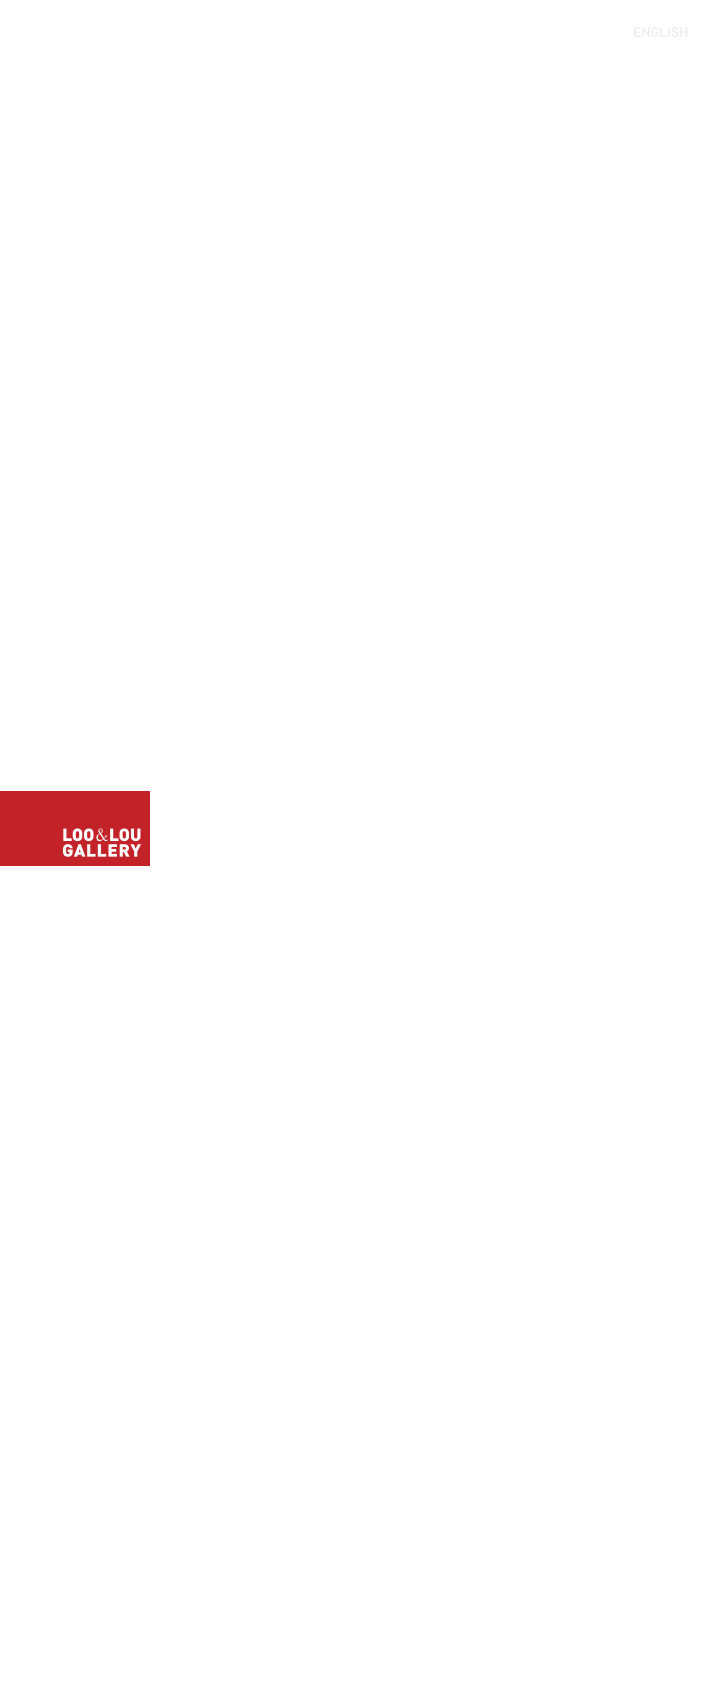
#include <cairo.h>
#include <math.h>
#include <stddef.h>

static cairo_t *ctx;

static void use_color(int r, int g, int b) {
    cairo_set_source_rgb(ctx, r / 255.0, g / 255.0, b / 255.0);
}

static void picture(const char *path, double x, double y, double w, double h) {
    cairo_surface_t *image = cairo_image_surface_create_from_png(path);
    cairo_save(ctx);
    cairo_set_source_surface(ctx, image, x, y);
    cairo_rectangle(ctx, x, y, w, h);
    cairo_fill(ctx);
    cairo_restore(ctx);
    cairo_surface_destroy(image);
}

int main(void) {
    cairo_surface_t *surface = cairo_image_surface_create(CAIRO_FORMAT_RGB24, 708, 1682);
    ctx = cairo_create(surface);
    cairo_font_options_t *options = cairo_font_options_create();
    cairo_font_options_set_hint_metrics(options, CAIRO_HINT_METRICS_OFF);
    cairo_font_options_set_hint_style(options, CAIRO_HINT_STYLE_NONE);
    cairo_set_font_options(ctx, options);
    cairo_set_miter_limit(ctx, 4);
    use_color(255, 255, 255);
    cairo_paint(ctx);
    cairo_select_font_face(ctx, "Barlow SemiBold", CAIRO_FONT_SLANT_NORMAL, CAIRO_FONT_WEIGHT_NORMAL);
    cairo_set_font_size(ctx, 14);
    use_color(238, 238, 238);
    cairo_move_to(ctx, 633, 37);
    cairo_show_text(ctx, "ENGLISH");
    picture("img1.png", 0, 791, 150, 75);
    cairo_surface_write_to_png(surface, "result.png");
    cairo_font_options_destroy(options);
    cairo_destroy(ctx);
    cairo_surface_destroy(surface);
    return 0;
}
